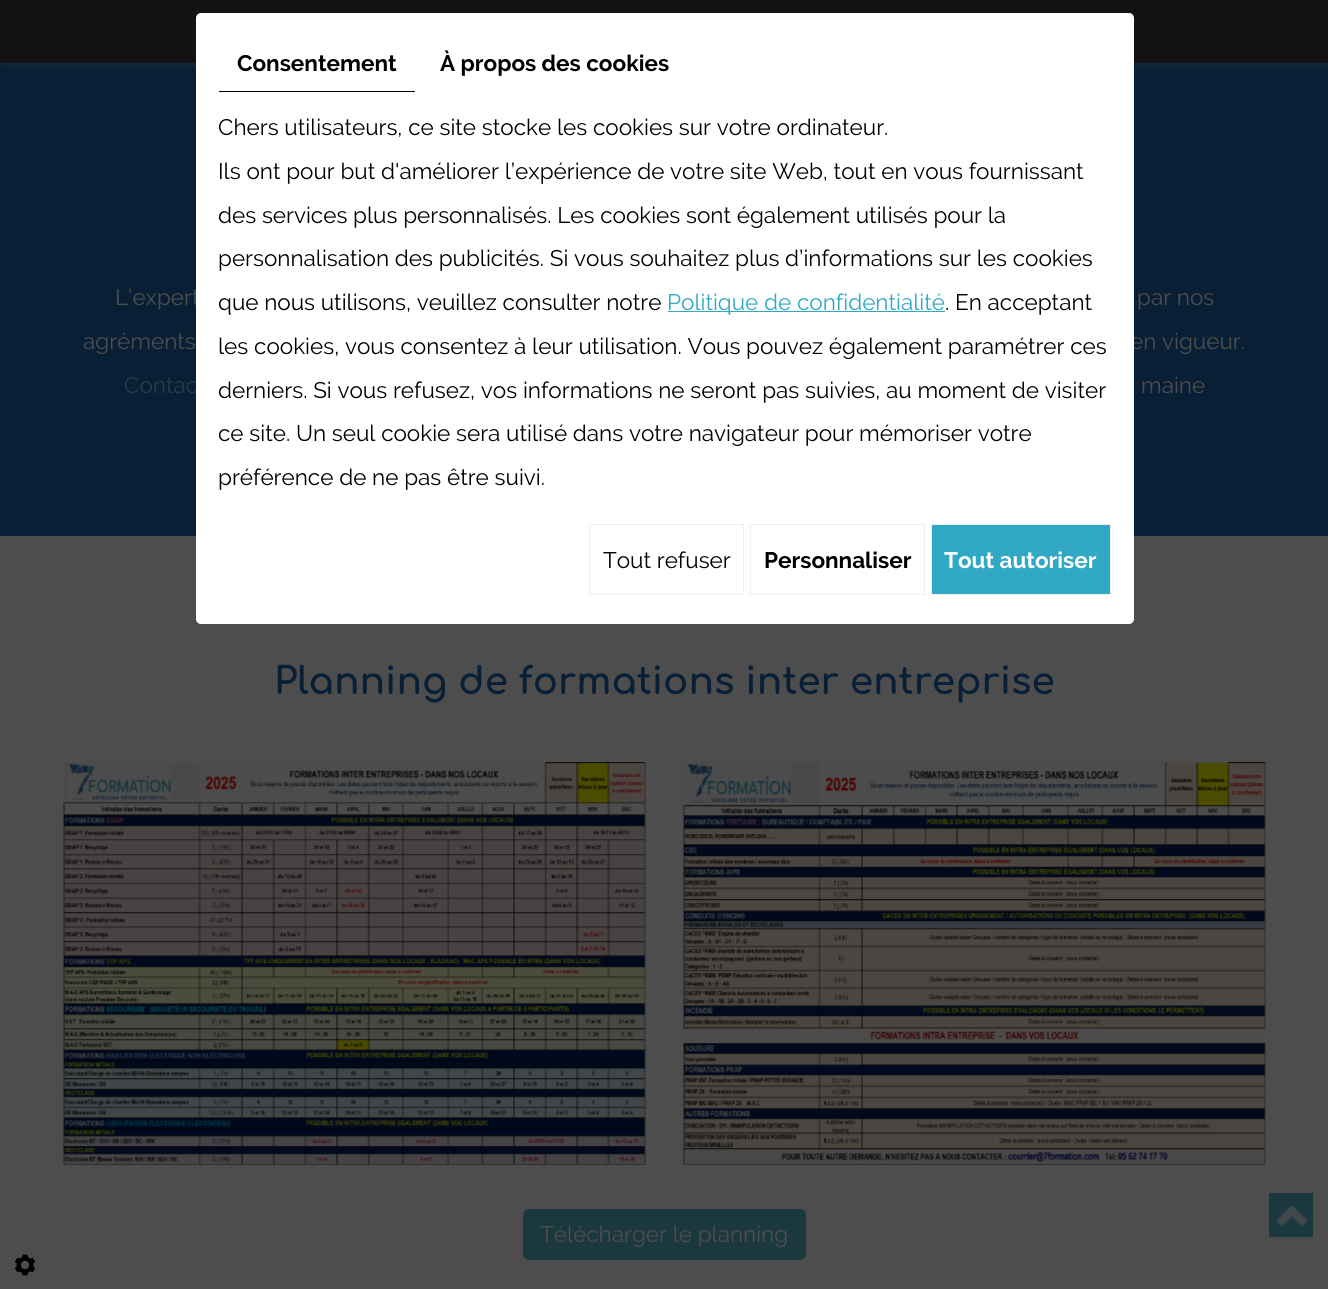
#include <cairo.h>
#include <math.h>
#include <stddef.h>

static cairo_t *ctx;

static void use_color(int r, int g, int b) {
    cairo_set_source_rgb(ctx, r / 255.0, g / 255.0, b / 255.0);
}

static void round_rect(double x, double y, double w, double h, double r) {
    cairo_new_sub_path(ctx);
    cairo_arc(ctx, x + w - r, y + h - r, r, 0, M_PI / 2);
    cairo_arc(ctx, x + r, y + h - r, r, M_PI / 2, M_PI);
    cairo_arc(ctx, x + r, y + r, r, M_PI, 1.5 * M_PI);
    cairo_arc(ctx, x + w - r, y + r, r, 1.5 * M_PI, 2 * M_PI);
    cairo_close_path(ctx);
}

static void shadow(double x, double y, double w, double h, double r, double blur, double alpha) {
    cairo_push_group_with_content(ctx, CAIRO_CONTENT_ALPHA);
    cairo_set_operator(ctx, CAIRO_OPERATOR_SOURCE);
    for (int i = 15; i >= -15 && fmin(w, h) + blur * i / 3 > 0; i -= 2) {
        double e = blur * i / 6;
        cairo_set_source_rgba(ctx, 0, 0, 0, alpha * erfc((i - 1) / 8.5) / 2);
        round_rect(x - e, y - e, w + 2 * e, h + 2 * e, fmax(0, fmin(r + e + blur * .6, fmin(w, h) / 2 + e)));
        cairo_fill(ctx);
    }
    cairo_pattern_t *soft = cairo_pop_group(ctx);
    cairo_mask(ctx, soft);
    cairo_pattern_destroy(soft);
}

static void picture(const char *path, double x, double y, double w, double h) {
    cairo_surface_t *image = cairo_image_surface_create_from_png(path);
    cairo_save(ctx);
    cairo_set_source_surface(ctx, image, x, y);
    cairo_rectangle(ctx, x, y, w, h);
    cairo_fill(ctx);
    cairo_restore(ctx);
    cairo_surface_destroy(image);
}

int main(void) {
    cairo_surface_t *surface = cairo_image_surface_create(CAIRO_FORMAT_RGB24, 1328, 1289);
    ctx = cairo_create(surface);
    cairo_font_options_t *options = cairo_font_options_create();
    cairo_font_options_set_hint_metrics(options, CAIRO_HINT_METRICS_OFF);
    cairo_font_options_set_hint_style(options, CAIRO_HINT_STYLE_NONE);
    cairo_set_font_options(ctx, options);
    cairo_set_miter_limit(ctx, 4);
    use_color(77, 77, 77);
    cairo_paint(ctx);
    use_color(9, 31, 53);
    cairo_rectangle(ctx, 0, 63, 1328, 473);
    cairo_fill(ctx);
    use_color(77, 77, 77);
    shadow(0, 0, 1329, 63, 0, 3, 0.5);
    use_color(19, 19, 19);
    cairo_rectangle(ctx, 0, 0, 1328, 63);
    cairo_fill(ctx);
    cairo_select_font_face(ctx, "Raleway", CAIRO_FONT_SLANT_NORMAL, CAIRO_FONT_WEIGHT_NORMAL);
    cairo_set_font_size(ctx, 22.5);
    use_color(77, 77, 77);
    cairo_move_to(ctx, 115, 305);
    cairo_show_text(ctx, "L’expert");
    cairo_move_to(ctx, 1130, 349);
    cairo_show_text(ctx, "en vigueur.");
    use_color(33, 63, 70);
    cairo_move_to(ctx, 124, 393);
    cairo_show_text(ctx, "Contac");
    use_color(255, 255, 255);
    round_rect(196, 13, 938, 611, 5);
    cairo_fill(ctx);
    use_color(0, 0, 0);
    cairo_rectangle(ctx, 219, 91, 196, 1);
    cairo_fill(ctx);
    cairo_select_font_face(ctx, "Raleway", CAIRO_FONT_SLANT_NORMAL, CAIRO_FONT_WEIGHT_BOLD);
    cairo_move_to(ctx, 237, 71);
    cairo_show_text(ctx, "Consentement");
    cairo_move_to(ctx, 440, 71);
    cairo_show_text(ctx, "À propos des cookies");
    cairo_select_font_face(ctx, "Raleway", CAIRO_FONT_SLANT_NORMAL, CAIRO_FONT_WEIGHT_NORMAL);
    cairo_move_to(ctx, 218, 135);
    cairo_show_text(ctx, "Chers utilisateurs, ce site stocke les cookies sur votre ordinateur.");
    cairo_move_to(ctx, 218, 179);
    cairo_show_text(ctx, "Ils ont pour but d'améliorer l’expérience de votre site Web, tout en vous fournissant");
    cairo_move_to(ctx, 218, 223);
    cairo_show_text(ctx, "des services plus personnalisés. Les cookies sont également utilisés pour la");
    cairo_move_to(ctx, 218, 266);
    cairo_show_text(ctx, "personnalisation des publicités. Si vous souhaitez plus d’informations sur les cookies");
    cairo_move_to(ctx, 218, 310);
    cairo_show_text(ctx, "que nous utilisons, veuillez consulter notre");
    use_color(49, 168, 197);
    cairo_rectangle(ctx, 668, 311, 277, 1);
    cairo_fill(ctx);
    cairo_move_to(ctx, 667, 310);
    cairo_show_text(ctx, "Politique de confidentialité");
    use_color(0, 0, 0);
    cairo_move_to(ctx, 945, 310);
    cairo_show_text(ctx, ". En acceptant");
    cairo_move_to(ctx, 218, 354);
    cairo_show_text(ctx, "les cookies, vous consentez à leur utilisation. Vous pouvez également paramétrer ces");
    cairo_move_to(ctx, 218, 398);
    cairo_show_text(ctx, "derniers. Si vous refusez, vos informations ne seront pas suivies, au moment de visiter");
    cairo_move_to(ctx, 218, 441);
    cairo_show_text(ctx, "ce site. Un seul cookie sera utilisé dans votre navigateur pour mémoriser votre");
    cairo_move_to(ctx, 218, 485);
    cairo_show_text(ctx, "préférence de ne pas être suivi.");
    cairo_rectangle(ctx, 589.5, 524.5, 154, 70);
    use_color(240, 240, 240);
    cairo_set_line_width(ctx, 1);
    cairo_stroke(ctx);
    use_color(0, 0, 0);
    cairo_move_to(ctx, 603, 568);
    cairo_show_text(ctx, "Tout refuser");
    cairo_rectangle(ctx, 750.5, 524.5, 174, 70);
    use_color(240, 240, 240);
    cairo_stroke(ctx);
    cairo_select_font_face(ctx, "Raleway", CAIRO_FONT_SLANT_NORMAL, CAIRO_FONT_WEIGHT_BOLD);
    use_color(0, 0, 0);
    cairo_move_to(ctx, 764, 568);
    cairo_show_text(ctx, "Personnaliser");
    use_color(49, 168, 197);
    cairo_rectangle(ctx, 931.5, 524.5, 179, 70);
    cairo_fill_preserve(ctx);
    use_color(240, 240, 240);
    cairo_stroke(ctx);
    use_color(255, 255, 255);
    cairo_move_to(ctx, 944, 568);
    cairo_show_text(ctx, "Tout autoriser");
    cairo_select_font_face(ctx, "Raleway", CAIRO_FONT_SLANT_NORMAL, CAIRO_FONT_WEIGHT_NORMAL);
    use_color(77, 77, 77);
    cairo_move_to(ctx, 1137, 305);
    cairo_show_text(ctx, "par nos");
    cairo_move_to(ctx, 83, 349);
    cairo_show_text(ctx, "agréments");
    cairo_move_to(ctx, 1141, 393);
    cairo_show_text(ctx, "maine");
    cairo_select_font_face(ctx, "Comfortaa", CAIRO_FONT_SLANT_NORMAL, CAIRO_FONT_WEIGHT_BOLD);
    cairo_set_font_size(ctx, 37.5);
    use_color(9, 31, 53);
    cairo_move_to(ctx, 274, 694);
    cairo_show_text(ctx, "Planning de formations inter entreprise");
    picture("img1.png", 63, 762, 583, 403);
    picture("img2.png", 683, 762, 583, 403);
    use_color(27, 56, 63);
    round_rect(523, 1209, 283, 51, 6);
    cairo_fill(ctx);
    cairo_select_font_face(ctx, "Raleway", CAIRO_FONT_SLANT_NORMAL, CAIRO_FONT_WEIGHT_NORMAL);
    cairo_set_font_size(ctx, 22.5);
    use_color(77, 77, 77);
    cairo_move_to(ctx, 540, 1242);
    cairo_show_text(ctx, "Télécharger le planning");
    use_color(27, 56, 63);
    cairo_rectangle(ctx, 1269, 1193, 44, 44);
    cairo_fill(ctx);
    picture("img3.png", 1276, 1205, 33, 22);
    picture("img4.png", 14, 1254, 22, 22);
    cairo_surface_write_to_png(surface, "result.png");
    cairo_font_options_destroy(options);
    cairo_destroy(ctx);
    cairo_surface_destroy(surface);
    return 0;
}
